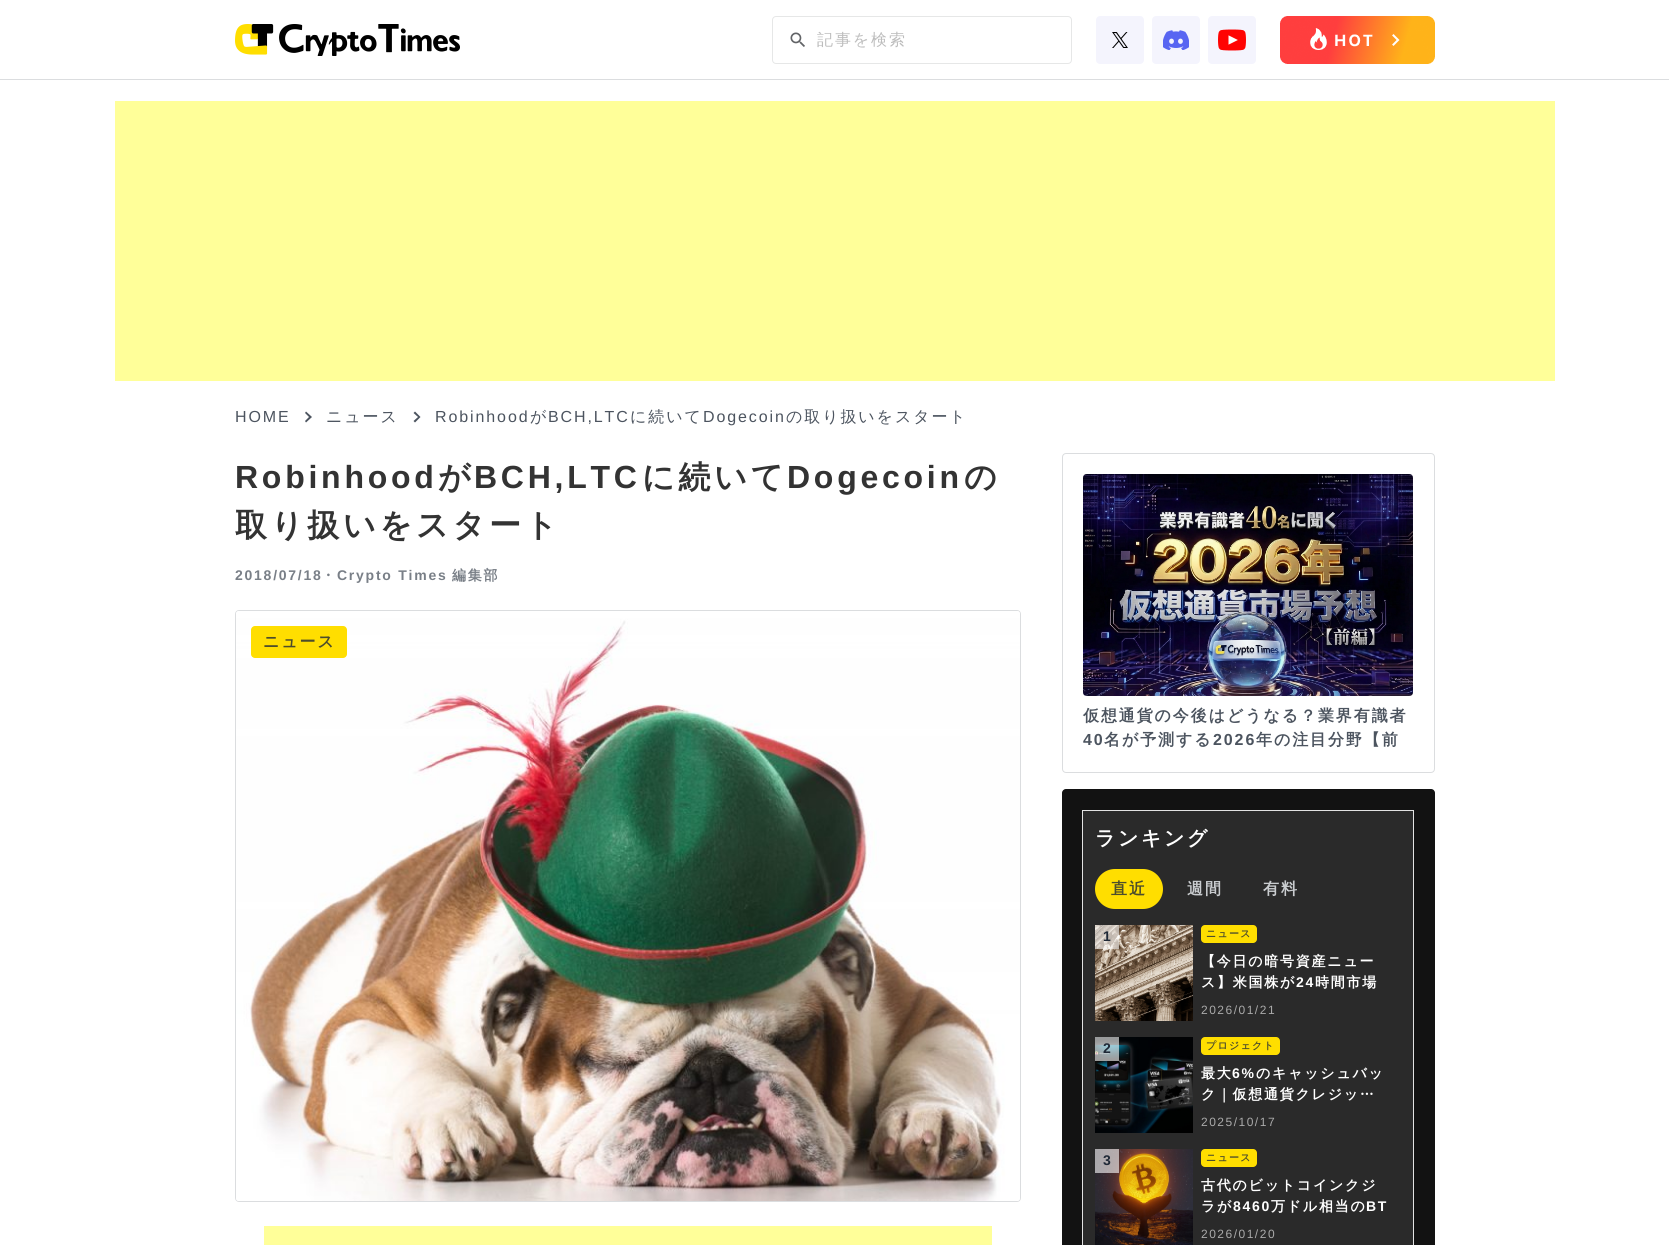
#include <cairo.h>
#include <math.h>
#include <stddef.h>

static cairo_t *ctx;

static void use_color(int r, int g, int b) {
    cairo_set_source_rgb(ctx, r / 255.0, g / 255.0, b / 255.0);
}

static void spaced_text(double x, double y, const char *s, double letter, double word) {
    cairo_move_to(ctx, x, y);
    while (*s) {
        char ch[5] = {0};
        int n = 0;
        do ch[n++] = *s++; while ((*s & 0xC0) == 0x80);
        cairo_show_text(ctx, ch);
        cairo_rel_move_to(ctx, letter + word * (*ch == ' '), 0);
    }
}

static void round_rect(double x, double y, double w, double h, double r) {
    cairo_new_sub_path(ctx);
    cairo_arc(ctx, x + w - r, y + h - r, r, 0, M_PI / 2);
    cairo_arc(ctx, x + r, y + h - r, r, M_PI / 2, M_PI);
    cairo_arc(ctx, x + r, y + r, r, M_PI, 1.5 * M_PI);
    cairo_arc(ctx, x + w - r, y + r, r, 1.5 * M_PI, 2 * M_PI);
    cairo_close_path(ctx);
}

static void picture(const char *path, double x, double y, double w, double h) {
    cairo_surface_t *image = cairo_image_surface_create_from_png(path);
    cairo_save(ctx);
    cairo_set_source_surface(ctx, image, x, y);
    cairo_rectangle(ctx, x, y, w, h);
    cairo_fill(ctx);
    cairo_restore(ctx);
    cairo_surface_destroy(image);
}

int main(void) {
    cairo_surface_t *surface = cairo_image_surface_create(CAIRO_FORMAT_RGB24, 1669, 1245);
    ctx = cairo_create(surface);
    cairo_font_options_t *options = cairo_font_options_create();
    cairo_font_options_set_hint_metrics(options, CAIRO_HINT_METRICS_OFF);
    cairo_font_options_set_hint_style(options, CAIRO_HINT_STYLE_NONE);
    cairo_set_font_options(ctx, options);
    cairo_set_miter_limit(ctx, 4);
    use_color(255, 255, 255);
    cairo_paint(ctx);
    use_color(219, 221, 223);
    cairo_rectangle(ctx, 0, 79, 1669, 1);
    cairo_fill(ctx);
    picture("img1.png", 235, 24, 225, 32);
    round_rect(772.5, 16.5, 299, 47, 3.5);
    use_color(230, 231, 231);
    cairo_set_line_width(ctx, 1);
    cairo_stroke(ctx);
    picture("img2.png", 790, 32, 15, 15);
    cairo_select_font_face(ctx, "WenQuanYi Zen Hei Medium", CAIRO_FONT_SLANT_NORMAL, CAIRO_FONT_WEIGHT_NORMAL);
    cairo_set_font_size(ctx, 16);
    use_color(189, 189, 189);
    spaced_text(817, 45, "記事を検索", 1.9, 0);
    use_color(244, 244, 253);
    round_rect(1096, 16, 48, 48, 4);
    cairo_fill(ctx);
    picture("img3.png", 1112, 32, 16, 16);
    round_rect(1152, 16, 48, 48, 4);
    cairo_fill(ctx);
    picture("img4.png", 1163, 30, 26, 20);
    round_rect(1208, 16, 48, 48, 4);
    cairo_fill(ctx);
    picture("img5.png", 1218, 29, 28, 22);
    picture("img6.png", 1280, 16, 155, 48);
    use_color(255, 255, 153);
    cairo_rectangle(ctx, 115, 101, 1440, 280);
    cairo_fill(ctx);
    cairo_select_font_face(ctx, "Liberation Sans", CAIRO_FONT_SLANT_NORMAL, CAIRO_FONT_WEIGHT_NORMAL);
    use_color(76, 84, 95);
    spaced_text(235, 422, "HOME", 1.9, 0);
    cairo_new_path(ctx);
    cairo_move_to(ctx, 306, 411.5);
    cairo_line_to(ctx, 312, 417);
    cairo_line_to(ctx, 309, 417);
    cairo_line_to(ctx, 305, 413);
    cairo_close_path(ctx);
    cairo_move_to(ctx, 312, 417);
    cairo_line_to(ctx, 306, 422.5);
    cairo_line_to(ctx, 305, 421);
    cairo_line_to(ctx, 309, 417);
    cairo_close_path(ctx);
    cairo_fill(ctx);
    cairo_select_font_face(ctx, "WenQuanYi Zen Hei Medium", CAIRO_FONT_SLANT_NORMAL, CAIRO_FONT_WEIGHT_NORMAL);
    spaced_text(326, 422, "ニュース", 1.9, 0);
    cairo_new_path(ctx);
    cairo_move_to(ctx, 415, 411.5);
    cairo_line_to(ctx, 420.5, 417);
    cairo_line_to(ctx, 418, 417);
    cairo_line_to(ctx, 413.5, 413);
    cairo_close_path(ctx);
    cairo_move_to(ctx, 420.5, 417);
    cairo_line_to(ctx, 415, 422.5);
    cairo_line_to(ctx, 413.5, 421);
    cairo_line_to(ctx, 418, 417);
    cairo_close_path(ctx);
    cairo_fill(ctx);
    cairo_select_font_face(ctx, "Liberation Sans", CAIRO_FONT_SLANT_NORMAL, CAIRO_FONT_WEIGHT_NORMAL);
    spaced_text(435, 422, "Robinhood", 1.9, 0);
    cairo_select_font_face(ctx, "WenQuanYi Zen Hei Medium", CAIRO_FONT_SLANT_NORMAL, CAIRO_FONT_WEIGHT_NORMAL);
    spaced_text(530, 422, "が", 1.9, 0);
    cairo_select_font_face(ctx, "Liberation Sans", CAIRO_FONT_SLANT_NORMAL, CAIRO_FONT_WEIGHT_NORMAL);
    spaced_text(548, 422, "BCH,LTC", 1.9, 0);
    cairo_select_font_face(ctx, "WenQuanYi Zen Hei Medium", CAIRO_FONT_SLANT_NORMAL, CAIRO_FONT_WEIGHT_NORMAL);
    spaced_text(630, 422, "に続いて", 1.9, 0);
    cairo_select_font_face(ctx, "Liberation Sans", CAIRO_FONT_SLANT_NORMAL, CAIRO_FONT_WEIGHT_NORMAL);
    spaced_text(703, 422, "Dogecoin", 1.9, 0);
    cairo_select_font_face(ctx, "WenQuanYi Zen Hei Medium", CAIRO_FONT_SLANT_NORMAL, CAIRO_FONT_WEIGHT_NORMAL);
    spaced_text(786, 422, "の取り扱いをスタート", 1.9, 0);
    cairo_select_font_face(ctx, "Liberation Sans", CAIRO_FONT_SLANT_NORMAL, CAIRO_FONT_WEIGHT_BOLD);
    cairo_set_font_size(ctx, 32);
    use_color(51, 51, 51);
    spaced_text(235, 488, "Robinhood", 3.75, 0);
    cairo_select_font_face(ctx, "WenQuanYi Zen Hei", CAIRO_FONT_SLANT_NORMAL, CAIRO_FONT_WEIGHT_BOLD);
    spaced_text(438, 488, "が", 3.75, 0);
    cairo_select_font_face(ctx, "Liberation Sans", CAIRO_FONT_SLANT_NORMAL, CAIRO_FONT_WEIGHT_BOLD);
    spaced_text(474, 488, "BCH,LTC", 3.75, 0);
    cairo_select_font_face(ctx, "WenQuanYi Zen Hei", CAIRO_FONT_SLANT_NORMAL, CAIRO_FONT_WEIGHT_BOLD);
    spaced_text(642, 488, "に続いて", 3.75, 0);
    cairo_select_font_face(ctx, "Liberation Sans", CAIRO_FONT_SLANT_NORMAL, CAIRO_FONT_WEIGHT_BOLD);
    spaced_text(787, 488, "Dogecoin", 3.75, 0);
    cairo_select_font_face(ctx, "WenQuanYi Zen Hei", CAIRO_FONT_SLANT_NORMAL, CAIRO_FONT_WEIGHT_BOLD);
    spaced_text(964, 488, "の", 3.75, 0);
    spaced_text(235, 536, "取り扱いをスタート", 3.75, 0);
    cairo_select_font_face(ctx, "Liberation Sans", CAIRO_FONT_SLANT_NORMAL, CAIRO_FONT_WEIGHT_BOLD);
    cairo_set_font_size(ctx, 14);
    use_color(121, 127, 135);
    spaced_text(235, 580, "2018/07/18", 1.75, 0);
    cairo_select_font_face(ctx, "WenQuanYi Zen Hei", CAIRO_FONT_SLANT_NORMAL, CAIRO_FONT_WEIGHT_BOLD);
    spaced_text(321, 580, "・", 1.75, 0);
    cairo_select_font_face(ctx, "Liberation Sans", CAIRO_FONT_SLANT_NORMAL, CAIRO_FONT_WEIGHT_BOLD);
    spaced_text(337, 580, "Crypto Times", 1.75, 0);
    cairo_select_font_face(ctx, "WenQuanYi Zen Hei", CAIRO_FONT_SLANT_NORMAL, CAIRO_FONT_WEIGHT_BOLD);
    spaced_text(452, 580, "編集部", 1.75, 0);
    round_rect(235.5, 610.5, 785, 591, 3.5);
    use_color(219, 221, 223);
    cairo_stroke(ctx);
    picture("img7.png", 236, 611, 784, 590);
    use_color(255, 222, 0);
    round_rect(251, 626, 96, 32, 4);
    cairo_fill(ctx);
    cairo_set_font_size(ctx, 16);
    use_color(76, 77, 44);
    spaced_text(263, 647, "ニュース", 1.9, 0);
    use_color(255, 255, 153);
    cairo_rectangle(ctx, 264, 1226, 728, 19);
    cairo_fill(ctx);
    round_rect(1062.5, 453.5, 372, 319, 3.5);
    use_color(219, 221, 223);
    cairo_stroke(ctx);
    picture("img8.png", 1083, 474, 330, 222);
    use_color(76, 84, 95);
    spaced_text(1083, 721, "仮想通貨の今後はどうなる？業界有識者", 1.9, 0);
    cairo_select_font_face(ctx, "Liberation Sans", CAIRO_FONT_SLANT_NORMAL, CAIRO_FONT_WEIGHT_BOLD);
    spaced_text(1083, 745, "40", 1.9, 0);
    cairo_select_font_face(ctx, "WenQuanYi Zen Hei", CAIRO_FONT_SLANT_NORMAL, CAIRO_FONT_WEIGHT_BOLD);
    spaced_text(1104, 745, "名が予測する", 1.9, 0);
    cairo_select_font_face(ctx, "Liberation Sans", CAIRO_FONT_SLANT_NORMAL, CAIRO_FONT_WEIGHT_BOLD);
    spaced_text(1213, 745, "2026", 1.9, 0);
    cairo_select_font_face(ctx, "WenQuanYi Zen Hei", CAIRO_FONT_SLANT_NORMAL, CAIRO_FONT_WEIGHT_BOLD);
    spaced_text(1256, 745, "年の注目分野【前", 1.9, 0);
    use_color(18, 18, 18);
    round_rect(1062, 789, 373, 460, 4);
    cairo_fill(ctx);
    use_color(42, 42, 42);
    cairo_rectangle(ctx, 1082.5, 810.5, 331, 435);
    cairo_fill_preserve(ctx);
    use_color(227, 227, 227);
    cairo_stroke(ctx);
    cairo_set_font_size(ctx, 20);
    use_color(255, 255, 255);
    spaced_text(1095, 845, "ランキング", 2.5, 0);
    use_color(255, 222, 0);
    round_rect(1095, 869, 68, 40, 20);
    cairo_fill(ctx);
    cairo_set_font_size(ctx, 16);
    use_color(76, 77, 44);
    spaced_text(1111, 894, "直近", 1.9, 0);
    use_color(201, 204, 207);
    spaced_text(1187, 894, "週間", 1.9, 0);
    spaced_text(1263, 894, "有料", 1.9, 0);
    picture("img9.png", 1095, 925, 98, 96);
    cairo_set_source_rgba(ctx, 1, 1, 1, 0.6);
    cairo_rectangle(ctx, 1095, 925, 24, 24);
    cairo_fill(ctx);
    cairo_select_font_face(ctx, "Liberation Sans", CAIRO_FONT_SLANT_NORMAL, CAIRO_FONT_WEIGHT_BOLD);
    cairo_set_font_size(ctx, 14);
    use_color(31, 41, 55);
    cairo_move_to(ctx, 1103, 941);
    cairo_show_text(ctx, "1");
    use_color(255, 222, 0);
    round_rect(1201, 925, 56, 18, 4);
    cairo_fill(ctx);
    cairo_select_font_face(ctx, "WenQuanYi Zen Hei", CAIRO_FONT_SLANT_NORMAL, CAIRO_FONT_WEIGHT_BOLD);
    cairo_set_font_size(ctx, 10);
    use_color(76, 77, 44);
    spaced_text(1206, 937, "ニュース", 1.25, 0);
    cairo_set_font_size(ctx, 14);
    use_color(255, 255, 255);
    spaced_text(1201, 966, "【今日の暗号資産ニュー", 1.75, 0);
    spaced_text(1201, 987, "ス】米国株が", 1.75, 0);
    cairo_select_font_face(ctx, "Liberation Sans", CAIRO_FONT_SLANT_NORMAL, CAIRO_FONT_WEIGHT_BOLD);
    spaced_text(1296, 987, "24", 1.75, 0);
    cairo_select_font_face(ctx, "WenQuanYi Zen Hei", CAIRO_FONT_SLANT_NORMAL, CAIRO_FONT_WEIGHT_BOLD);
    spaced_text(1315, 987, "時間市場", 1.75, 0);
    cairo_select_font_face(ctx, "Liberation Sans", CAIRO_FONT_SLANT_NORMAL, CAIRO_FONT_WEIGHT_NORMAL);
    cairo_set_font_size(ctx, 12);
    use_color(170, 170, 170);
    spaced_text(1201, 1014, "2026/01/21", 1.5, 0);
    picture("img10.png", 1095, 1037, 98, 96);
    cairo_set_source_rgba(ctx, 1, 1, 1, 0.6);
    cairo_rectangle(ctx, 1095, 1037, 24, 24);
    cairo_fill(ctx);
    cairo_select_font_face(ctx, "Liberation Sans", CAIRO_FONT_SLANT_NORMAL, CAIRO_FONT_WEIGHT_BOLD);
    cairo_set_font_size(ctx, 14);
    use_color(31, 41, 55);
    cairo_move_to(ctx, 1103, 1053);
    cairo_show_text(ctx, "2");
    use_color(255, 222, 0);
    round_rect(1201, 1037, 79, 18, 4);
    cairo_fill(ctx);
    cairo_select_font_face(ctx, "WenQuanYi Zen Hei", CAIRO_FONT_SLANT_NORMAL, CAIRO_FONT_WEIGHT_BOLD);
    cairo_set_font_size(ctx, 10);
    use_color(76, 77, 44);
    spaced_text(1206, 1049, "プロジェクト", 1.25, 0);
    cairo_set_font_size(ctx, 14);
    use_color(255, 255, 255);
    spaced_text(1201, 1078, "最大", 1.75, 0);
    cairo_select_font_face(ctx, "Liberation Sans", CAIRO_FONT_SLANT_NORMAL, CAIRO_FONT_WEIGHT_BOLD);
    spaced_text(1232, 1078, "6%", 1.75, 0);
    cairo_select_font_face(ctx, "WenQuanYi Zen Hei", CAIRO_FONT_SLANT_NORMAL, CAIRO_FONT_WEIGHT_BOLD);
    spaced_text(1256, 1078, "のキャッシュバッ", 1.75, 0);
    spaced_text(1201, 1099, "ク｜仮想通貨クレジッ…", 1.75, 0);
    cairo_select_font_face(ctx, "Liberation Sans", CAIRO_FONT_SLANT_NORMAL, CAIRO_FONT_WEIGHT_NORMAL);
    cairo_set_font_size(ctx, 12);
    use_color(170, 170, 170);
    spaced_text(1201, 1126, "2025/10/17", 1.5, 0);
    picture("img11.png", 1095, 1149, 98, 96);
    cairo_set_source_rgba(ctx, 1, 1, 1, 0.6);
    cairo_rectangle(ctx, 1095, 1149, 24, 24);
    cairo_fill(ctx);
    cairo_select_font_face(ctx, "Liberation Sans", CAIRO_FONT_SLANT_NORMAL, CAIRO_FONT_WEIGHT_BOLD);
    cairo_set_font_size(ctx, 14);
    use_color(31, 41, 55);
    cairo_move_to(ctx, 1103, 1165);
    cairo_show_text(ctx, "3");
    use_color(255, 222, 0);
    round_rect(1201, 1149, 56, 18, 4);
    cairo_fill(ctx);
    cairo_select_font_face(ctx, "WenQuanYi Zen Hei", CAIRO_FONT_SLANT_NORMAL, CAIRO_FONT_WEIGHT_BOLD);
    cairo_set_font_size(ctx, 10);
    use_color(76, 77, 44);
    spaced_text(1206, 1161, "ニュース", 1.25, 0);
    cairo_set_font_size(ctx, 14);
    use_color(255, 255, 255);
    spaced_text(1201, 1190, "古代のビットコインクジ", 1.75, 0);
    spaced_text(1201, 1211, "ラが", 1.75, 0);
    cairo_select_font_face(ctx, "Liberation Sans", CAIRO_FONT_SLANT_NORMAL, CAIRO_FONT_WEIGHT_BOLD);
    spaced_text(1233, 1211, "8460", 1.75, 0);
    cairo_select_font_face(ctx, "WenQuanYi Zen Hei", CAIRO_FONT_SLANT_NORMAL, CAIRO_FONT_WEIGHT_BOLD);
    spaced_text(1271, 1211, "万ドル相当の", 1.75, 0);
    cairo_select_font_face(ctx, "Liberation Sans", CAIRO_FONT_SLANT_NORMAL, CAIRO_FONT_WEIGHT_BOLD);
    spaced_text(1366, 1211, "BT", 1.75, 0);
    cairo_select_font_face(ctx, "Liberation Sans", CAIRO_FONT_SLANT_NORMAL, CAIRO_FONT_WEIGHT_NORMAL);
    cairo_set_font_size(ctx, 12);
    use_color(170, 170, 170);
    spaced_text(1201, 1238, "2026/01/20", 1.5, 0);
    cairo_surface_write_to_png(surface, "result.png");
    cairo_font_options_destroy(options);
    cairo_destroy(ctx);
    cairo_surface_destroy(surface);
    return 0;
}
